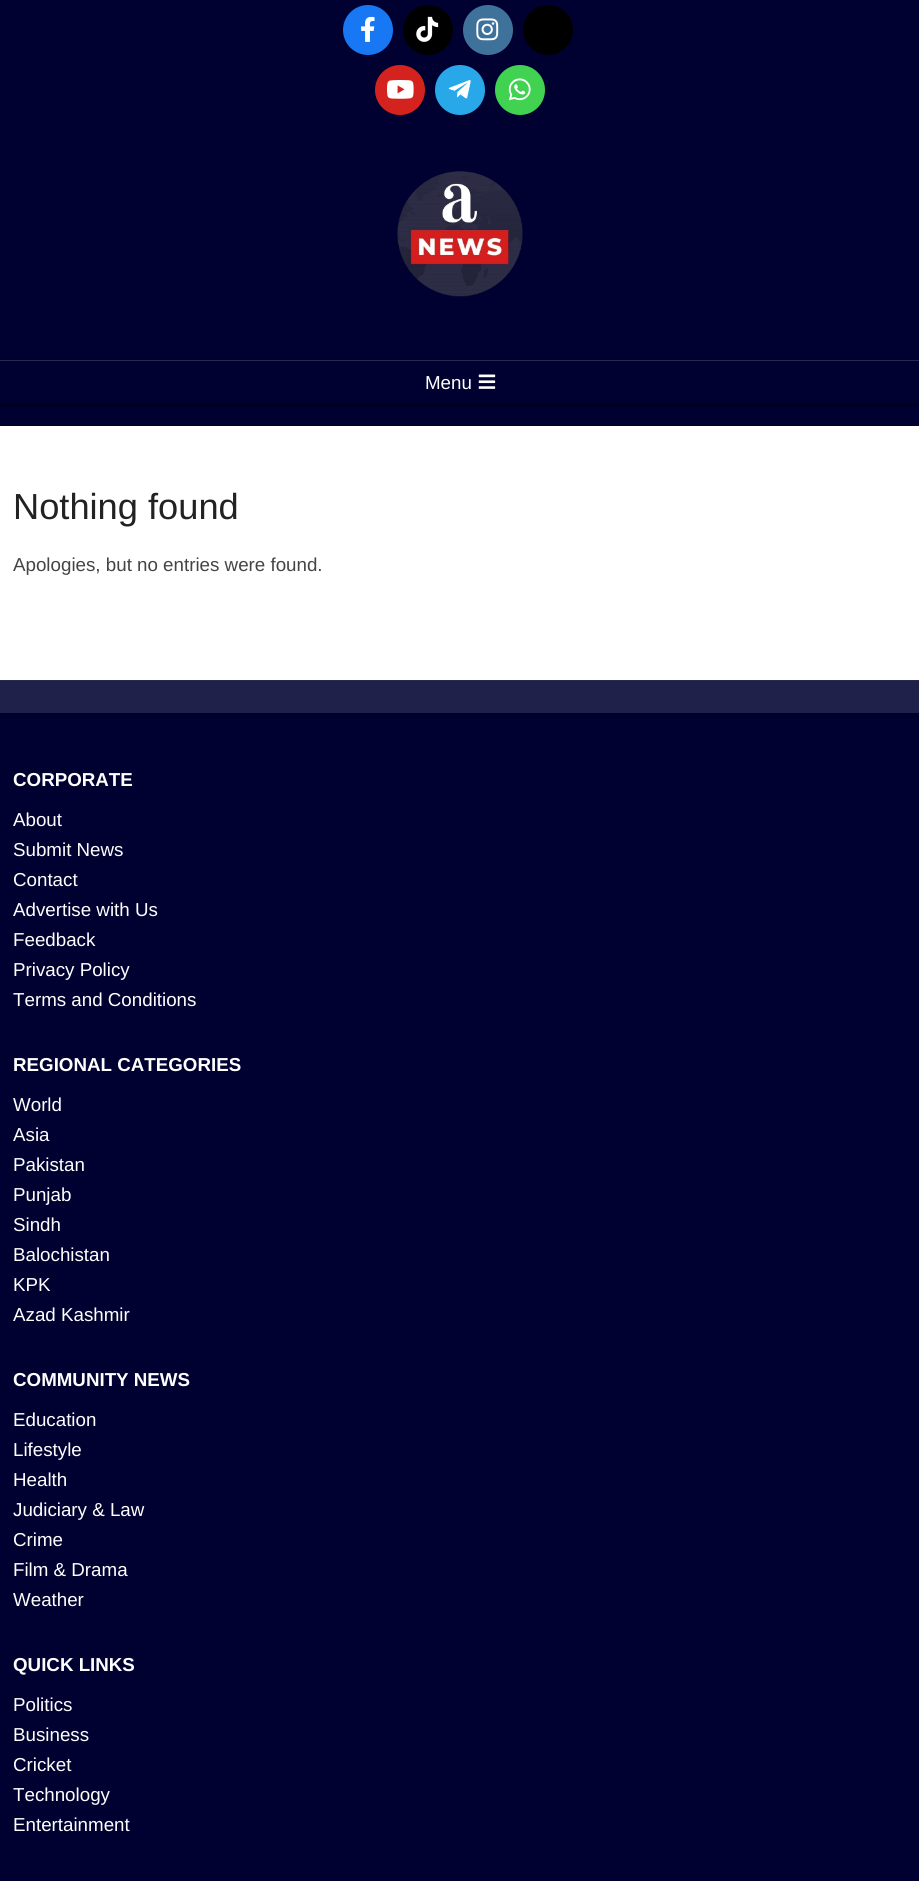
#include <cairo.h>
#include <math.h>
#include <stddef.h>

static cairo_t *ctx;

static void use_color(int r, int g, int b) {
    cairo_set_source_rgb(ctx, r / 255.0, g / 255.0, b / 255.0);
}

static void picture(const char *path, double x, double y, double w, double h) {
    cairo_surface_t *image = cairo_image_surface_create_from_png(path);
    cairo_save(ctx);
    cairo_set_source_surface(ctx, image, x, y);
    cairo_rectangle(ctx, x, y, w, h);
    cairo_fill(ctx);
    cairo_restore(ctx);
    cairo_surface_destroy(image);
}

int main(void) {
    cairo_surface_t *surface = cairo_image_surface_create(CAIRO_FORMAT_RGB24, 919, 1881);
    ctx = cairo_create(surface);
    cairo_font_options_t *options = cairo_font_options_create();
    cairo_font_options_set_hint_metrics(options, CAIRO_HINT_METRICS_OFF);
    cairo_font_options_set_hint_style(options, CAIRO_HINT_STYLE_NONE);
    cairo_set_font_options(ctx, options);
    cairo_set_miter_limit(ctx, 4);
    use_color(0, 1, 48);
    cairo_paint(ctx);
    use_color(24, 119, 242);
    cairo_arc(ctx, 368, 30, 25, 0, 2 * M_PI);
    cairo_fill(ctx);
    picture("img1.png", 361, 16, 14, 26);
    use_color(0, 0, 0);
    cairo_arc(ctx, 428, 30, 25, 0, 2 * M_PI);
    cairo_fill(ctx);
    picture("img2.png", 416, 16, 23, 26);
    use_color(63, 114, 155);
    cairo_arc(ctx, 488, 30, 25, 0, 2 * M_PI);
    cairo_fill(ctx);
    picture("img3.png", 476, 18, 23, 23);
    use_color(0, 0, 0);
    cairo_arc(ctx, 548, 30, 25, 0, 2 * M_PI);
    cairo_fill(ctx);
    use_color(212, 35, 30);
    cairo_arc(ctx, 400, 90, 25, 0, 2 * M_PI);
    cairo_fill(ctx);
    picture("img4.png", 387, 80, 27, 19);
    use_color(40, 168, 233);
    cairo_arc(ctx, 460, 90, 25, 0, 2 * M_PI);
    cairo_fill(ctx);
    picture("img5.png", 448, 80, 23, 19);
    use_color(65, 210, 81);
    cairo_arc(ctx, 520, 90, 25, 0, 2 * M_PI);
    cairo_fill(ctx);
    picture("img6.png", 508, 78, 23, 23);
    picture("img7.png", 397, 171, 126, 126);
    use_color(40, 40, 80);
    cairo_rectangle(ctx, 0, 360, 919, 1);
    cairo_fill(ctx);
    cairo_select_font_face(ctx, "Liberation Sans", CAIRO_FONT_SLANT_NORMAL, CAIRO_FONT_WEIGHT_NORMAL);
    cairo_set_font_size(ctx, 18.75);
    use_color(255, 255, 255);
    cairo_move_to(ctx, 425, 389);
    cairo_show_text(ctx, "Menu");
    picture("img8.png", 478, 374, 18, 15);
    use_color(0, 1, 24);
    cairo_rectangle(ctx, 0, 404, 919, 2);
    cairo_fill(ctx);
    use_color(255, 255, 255);
    cairo_rectangle(ctx, 0, 426, 919, 254);
    cairo_fill(ctx);
    cairo_set_font_size(ctx, 36.25);
    use_color(34, 34, 34);
    cairo_move_to(ctx, 13, 519);
    cairo_show_text(ctx, "Nothing found");
    cairo_set_font_size(ctx, 18.75);
    use_color(68, 68, 68);
    cairo_move_to(ctx, 13, 571);
    cairo_show_text(ctx, "Apologies, but no entries were found.");
    use_color(32, 33, 74);
    cairo_rectangle(ctx, 0, 681, 919, 32);
    cairo_fill(ctx);
    use_color(40, 40, 80);
    cairo_rectangle(ctx, 0, 680, 919, 1);
    cairo_fill(ctx);
    use_color(0, 1, 42);
    cairo_rectangle(ctx, 0, 713, 919, 5);
    cairo_fill(ctx);
    cairo_select_font_face(ctx, "Liberation Sans", CAIRO_FONT_SLANT_NORMAL, CAIRO_FONT_WEIGHT_BOLD);
    use_color(255, 255, 255);
    cairo_move_to(ctx, 13, 786);
    cairo_show_text(ctx, "CORPORATE");
    cairo_select_font_face(ctx, "Liberation Sans", CAIRO_FONT_SLANT_NORMAL, CAIRO_FONT_WEIGHT_NORMAL);
    cairo_move_to(ctx, 13, 826);
    cairo_show_text(ctx, "About");
    cairo_move_to(ctx, 13, 856);
    cairo_show_text(ctx, "Submit News");
    cairo_move_to(ctx, 13, 886);
    cairo_show_text(ctx, "Contact");
    cairo_move_to(ctx, 13, 916);
    cairo_show_text(ctx, "Advertise with Us");
    cairo_move_to(ctx, 13, 946);
    cairo_show_text(ctx, "Feedback");
    cairo_move_to(ctx, 13, 976);
    cairo_show_text(ctx, "Privacy Policy");
    cairo_move_to(ctx, 13, 1006);
    cairo_show_text(ctx, "Terms and Conditions");
    cairo_select_font_face(ctx, "Liberation Sans", CAIRO_FONT_SLANT_NORMAL, CAIRO_FONT_WEIGHT_BOLD);
    cairo_move_to(ctx, 13, 1071);
    cairo_show_text(ctx, "REGIONAL CATEGORIES");
    cairo_select_font_face(ctx, "Liberation Sans", CAIRO_FONT_SLANT_NORMAL, CAIRO_FONT_WEIGHT_NORMAL);
    cairo_move_to(ctx, 13, 1111);
    cairo_show_text(ctx, "World");
    cairo_move_to(ctx, 13, 1141);
    cairo_show_text(ctx, "Asia");
    cairo_move_to(ctx, 13, 1171);
    cairo_show_text(ctx, "Pakistan");
    cairo_move_to(ctx, 13, 1201);
    cairo_show_text(ctx, "Punjab");
    cairo_move_to(ctx, 13, 1231);
    cairo_show_text(ctx, "Sindh");
    cairo_move_to(ctx, 13, 1261);
    cairo_show_text(ctx, "Balochistan");
    cairo_move_to(ctx, 13, 1291);
    cairo_show_text(ctx, "KPK");
    cairo_move_to(ctx, 13, 1321);
    cairo_show_text(ctx, "Azad Kashmir");
    cairo_select_font_face(ctx, "Liberation Sans", CAIRO_FONT_SLANT_NORMAL, CAIRO_FONT_WEIGHT_BOLD);
    cairo_move_to(ctx, 13, 1386);
    cairo_show_text(ctx, "COMMUNITY NEWS");
    cairo_select_font_face(ctx, "Liberation Sans", CAIRO_FONT_SLANT_NORMAL, CAIRO_FONT_WEIGHT_NORMAL);
    cairo_move_to(ctx, 13, 1426);
    cairo_show_text(ctx, "Education");
    cairo_move_to(ctx, 13, 1456);
    cairo_show_text(ctx, "Lifestyle");
    cairo_move_to(ctx, 13, 1486);
    cairo_show_text(ctx, "Health");
    cairo_move_to(ctx, 13, 1516);
    cairo_show_text(ctx, "Judiciary & Law");
    cairo_move_to(ctx, 13, 1546);
    cairo_show_text(ctx, "Crime");
    cairo_move_to(ctx, 13, 1576);
    cairo_show_text(ctx, "Film & Drama");
    cairo_move_to(ctx, 13, 1606);
    cairo_show_text(ctx, "Weather");
    cairo_select_font_face(ctx, "Liberation Sans", CAIRO_FONT_SLANT_NORMAL, CAIRO_FONT_WEIGHT_BOLD);
    cairo_move_to(ctx, 13, 1671);
    cairo_show_text(ctx, "QUICK LINKS");
    cairo_select_font_face(ctx, "Liberation Sans", CAIRO_FONT_SLANT_NORMAL, CAIRO_FONT_WEIGHT_NORMAL);
    cairo_move_to(ctx, 13, 1711);
    cairo_show_text(ctx, "Politics");
    cairo_move_to(ctx, 13, 1741);
    cairo_show_text(ctx, "Business");
    cairo_move_to(ctx, 13, 1771);
    cairo_show_text(ctx, "Cricket");
    cairo_move_to(ctx, 13, 1801);
    cairo_show_text(ctx, "Technology");
    cairo_move_to(ctx, 13, 1831);
    cairo_show_text(ctx, "Entertainment");
    cairo_surface_write_to_png(surface, "result.png");
    cairo_font_options_destroy(options);
    cairo_destroy(ctx);
    cairo_surface_destroy(surface);
    return 0;
}
